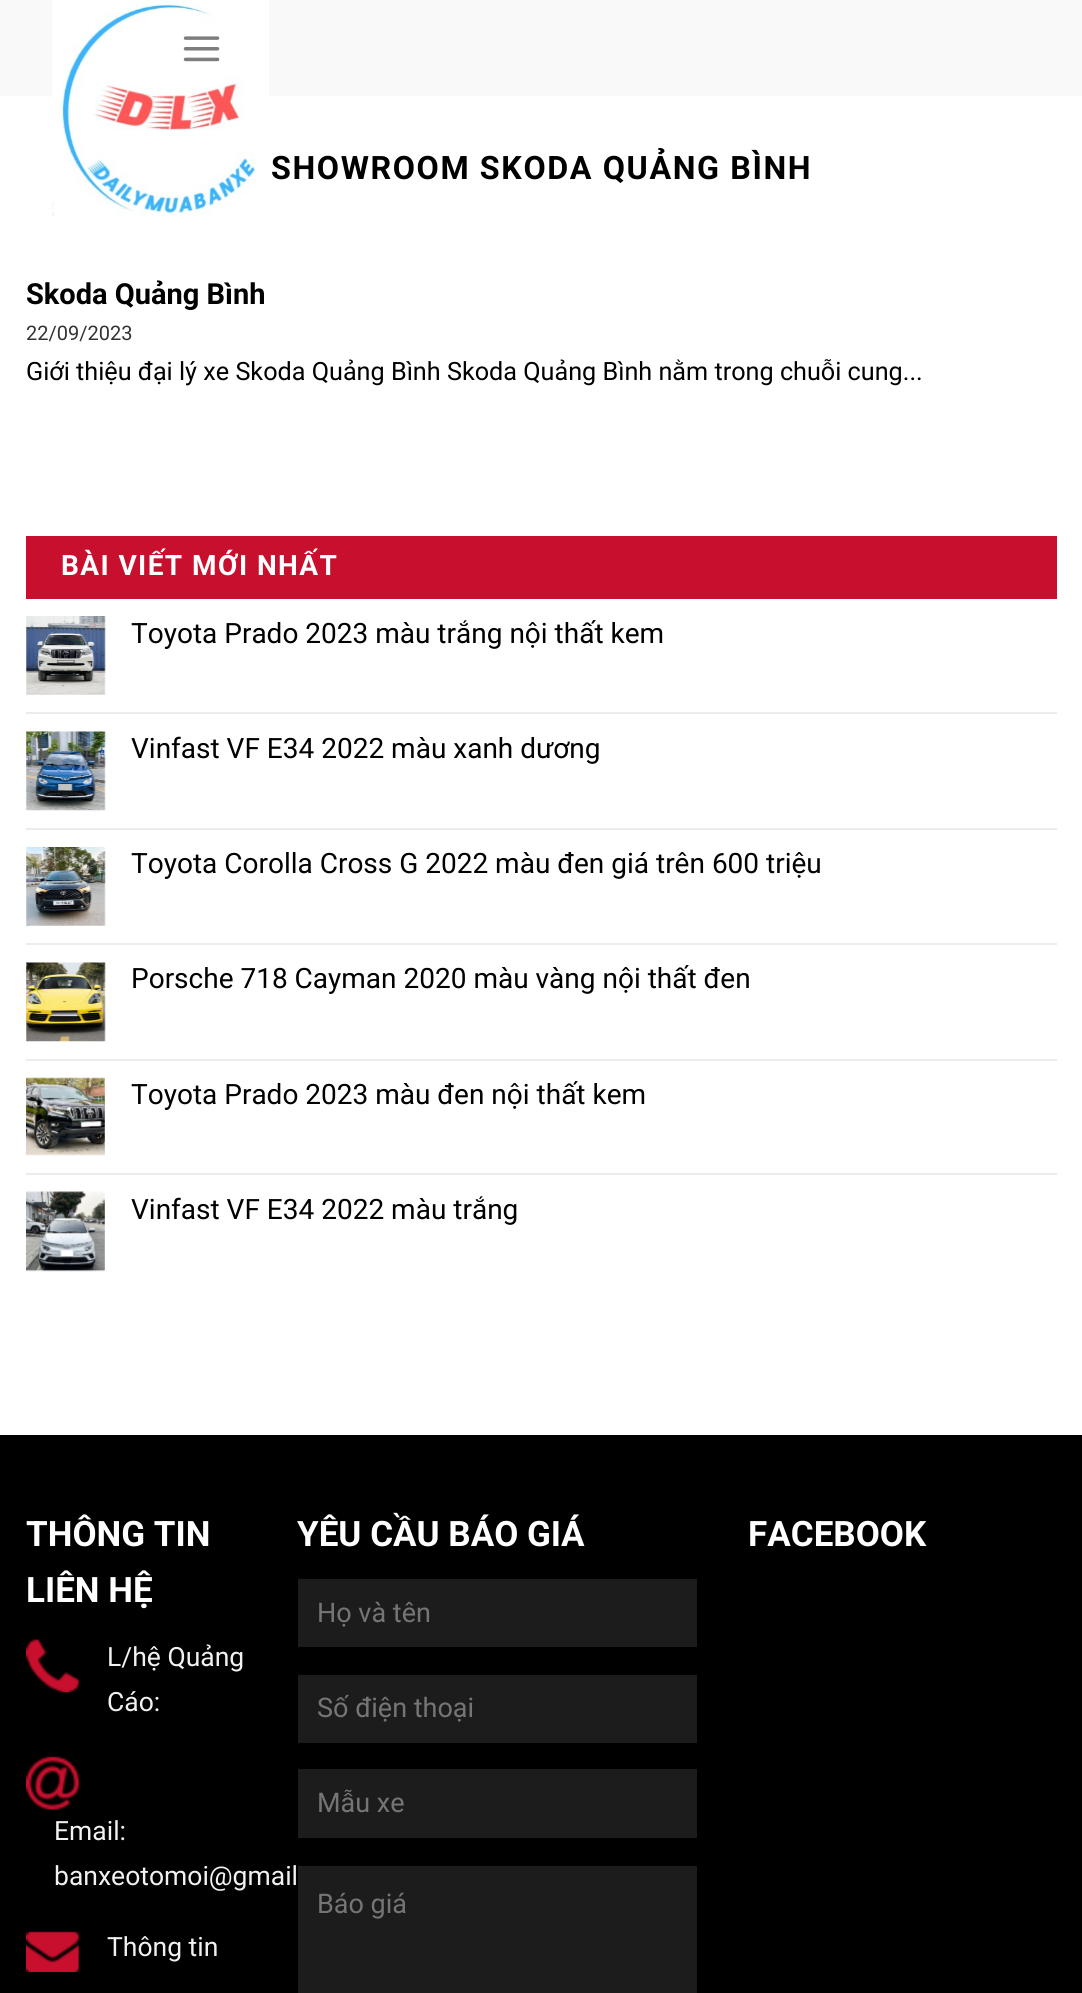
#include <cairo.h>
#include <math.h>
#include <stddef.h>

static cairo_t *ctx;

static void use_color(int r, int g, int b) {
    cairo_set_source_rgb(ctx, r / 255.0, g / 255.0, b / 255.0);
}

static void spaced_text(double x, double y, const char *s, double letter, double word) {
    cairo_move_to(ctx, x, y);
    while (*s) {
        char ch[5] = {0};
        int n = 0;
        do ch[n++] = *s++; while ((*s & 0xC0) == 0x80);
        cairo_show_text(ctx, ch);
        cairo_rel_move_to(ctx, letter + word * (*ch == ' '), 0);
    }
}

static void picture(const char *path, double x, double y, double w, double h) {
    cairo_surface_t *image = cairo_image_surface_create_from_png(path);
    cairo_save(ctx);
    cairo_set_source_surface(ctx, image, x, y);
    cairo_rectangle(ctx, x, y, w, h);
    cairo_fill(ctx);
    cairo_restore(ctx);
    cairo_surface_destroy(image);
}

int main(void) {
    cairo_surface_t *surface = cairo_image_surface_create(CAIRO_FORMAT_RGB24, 1082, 1993);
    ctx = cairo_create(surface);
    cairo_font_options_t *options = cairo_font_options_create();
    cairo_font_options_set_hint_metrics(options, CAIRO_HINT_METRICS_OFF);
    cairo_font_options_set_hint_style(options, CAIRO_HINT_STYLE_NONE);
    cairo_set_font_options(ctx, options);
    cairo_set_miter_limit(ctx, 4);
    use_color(255, 255, 255);
    cairo_paint(ctx);
    use_color(249, 249, 249);
    cairo_rectangle(ctx, 0, 0, 1082, 96);
    cairo_fill(ctx);
    picture("img1.png", 52, 0, 217, 217);
    picture("img2.png", 183, 36, 37, 26);
    cairo_select_font_face(ctx, "Roboto", CAIRO_FONT_SLANT_NORMAL, CAIRO_FONT_WEIGHT_BOLD);
    cairo_set_font_size(ctx, 32.25);
    use_color(0, 0, 0);
    spaced_text(271, 179, "SHOWROOM SKODA QUẢNG BÌNH", 1.6, 0);
    cairo_set_font_size(ctx, 29);
    cairo_move_to(ctx, 26, 304);
    cairo_show_text(ctx, "Skoda Quảng Bình");
    cairo_select_font_face(ctx, "Roboto", CAIRO_FONT_SLANT_NORMAL, CAIRO_FONT_WEIGHT_NORMAL);
    cairo_set_font_size(ctx, 20);
    use_color(51, 51, 51);
    cairo_move_to(ctx, 26, 340);
    cairo_show_text(ctx, "22/09/2023");
    cairo_set_font_size(ctx, 25.2);
    use_color(0, 0, 0);
    cairo_move_to(ctx, 26, 380);
    cairo_show_text(ctx, "Giới thiệu đại lý xe Skoda Quảng Bình Skoda Quảng Bình nằm trong chuỗi cung...");
    use_color(200, 16, 46);
    cairo_rectangle(ctx, 26, 536, 1031, 63);
    cairo_fill(ctx);
    cairo_select_font_face(ctx, "Roboto", CAIRO_FONT_SLANT_NORMAL, CAIRO_FONT_WEIGHT_BOLD);
    cairo_set_font_size(ctx, 28);
    use_color(255, 255, 255);
    spaced_text(61, 575, "BÀI VIẾT MỚI NHẤT", 1.4, 0);
    picture("img3.png", 26, 616, 80, 79);
    cairo_select_font_face(ctx, "Roboto", CAIRO_FONT_SLANT_NORMAL, CAIRO_FONT_WEIGHT_NORMAL);
    use_color(0, 0, 0);
    cairo_move_to(ctx, 131, 643);
    cairo_show_text(ctx, "Toyota Prado 2023 màu trắng nội thất kem");
    use_color(236, 236, 236);
    cairo_rectangle(ctx, 26, 712, 1031, 2);
    cairo_fill(ctx);
    picture("img4.png", 26, 731, 80, 80);
    use_color(0, 0, 0);
    cairo_move_to(ctx, 131, 758);
    cairo_show_text(ctx, "Vinfast VF E34 2022 màu xanh dương");
    use_color(236, 236, 236);
    cairo_rectangle(ctx, 26, 828, 1031, 2);
    cairo_fill(ctx);
    picture("img5.png", 26, 847, 80, 79);
    use_color(0, 0, 0);
    cairo_move_to(ctx, 131, 873);
    cairo_show_text(ctx, "Toyota Corolla Cross G 2022 màu đen giá trên 600 triệu");
    use_color(236, 236, 236);
    cairo_rectangle(ctx, 26, 943, 1031, 2);
    cairo_fill(ctx);
    picture("img6.png", 26, 962, 80, 80);
    use_color(0, 0, 0);
    cairo_move_to(ctx, 131, 988);
    cairo_show_text(ctx, "Porsche 718 Cayman 2020 màu vàng nội thất đen");
    use_color(236, 236, 236);
    cairo_rectangle(ctx, 26, 1059, 1031, 2);
    cairo_fill(ctx);
    picture("img7.png", 26, 1077, 79, 79);
    use_color(0, 0, 0);
    cairo_move_to(ctx, 131, 1104);
    cairo_show_text(ctx, "Toyota Prado 2023 màu đen nội thất kem");
    use_color(236, 236, 236);
    cairo_rectangle(ctx, 26, 1173, 1031, 2);
    cairo_fill(ctx);
    picture("img8.png", 26, 1191, 79, 81);
    use_color(0, 0, 0);
    cairo_move_to(ctx, 131, 1219);
    cairo_show_text(ctx, "Vinfast VF E34 2022 màu trắng");
    cairo_rectangle(ctx, 0, 1435, 1082, 558);
    cairo_fill(ctx);
    cairo_select_font_face(ctx, "Roboto", CAIRO_FONT_SLANT_NORMAL, CAIRO_FONT_WEIGHT_BOLD);
    cairo_set_font_size(ctx, 35);
    use_color(255, 255, 255);
    cairo_move_to(ctx, 26, 1546);
    cairo_show_text(ctx, "THÔNG TIN");
    cairo_move_to(ctx, 26, 1602);
    cairo_show_text(ctx, "LIÊN HỆ");
    picture("img9.png", 26, 1639, 54, 54);
    cairo_select_font_face(ctx, "Roboto", CAIRO_FONT_SLANT_NORMAL, CAIRO_FONT_WEIGHT_NORMAL);
    cairo_set_font_size(ctx, 26.5);
    use_color(241, 241, 241);
    cairo_move_to(ctx, 107, 1666);
    cairo_show_text(ctx, "L/hệ Quảng");
    cairo_move_to(ctx, 107, 1711);
    cairo_show_text(ctx, "Cáo:");
    picture("img10.png", 26, 1756, 54, 55);
    cairo_move_to(ctx, 54, 1840);
    cairo_show_text(ctx, "Email:");
    cairo_move_to(ctx, 54, 1885);
    cairo_show_text(ctx, "banxeotomoi@gmail");
    picture("img11.png", 26, 1931, 54, 41);
    cairo_move_to(ctx, 107, 1956);
    cairo_show_text(ctx, "Thông tin");
    cairo_select_font_face(ctx, "Roboto", CAIRO_FONT_SLANT_NORMAL, CAIRO_FONT_WEIGHT_BOLD);
    cairo_set_font_size(ctx, 35);
    use_color(255, 255, 255);
    cairo_move_to(ctx, 297, 1546);
    cairo_show_text(ctx, "YÊU CẦU BÁO GIÁ");
    use_color(28, 28, 28);
    cairo_rectangle(ctx, 298, 1579, 399, 68);
    cairo_fill(ctx);
    cairo_select_font_face(ctx, "Roboto", CAIRO_FONT_SLANT_NORMAL, CAIRO_FONT_WEIGHT_NORMAL);
    cairo_set_font_size(ctx, 27);
    use_color(117, 117, 117);
    cairo_move_to(ctx, 317, 1622);
    cairo_show_text(ctx, "Họ và tên");
    use_color(28, 28, 28);
    cairo_rectangle(ctx, 298, 1675, 399, 68);
    cairo_fill(ctx);
    use_color(117, 117, 117);
    cairo_move_to(ctx, 317, 1717);
    cairo_show_text(ctx, "Số điện thoại");
    use_color(28, 28, 28);
    cairo_rectangle(ctx, 298, 1769, 399, 69);
    cairo_fill(ctx);
    use_color(117, 117, 117);
    cairo_move_to(ctx, 317, 1812);
    cairo_show_text(ctx, "Mẫu xe");
    use_color(28, 28, 28);
    cairo_rectangle(ctx, 298, 1866, 399, 127);
    cairo_fill(ctx);
    use_color(117, 117, 117);
    cairo_move_to(ctx, 317, 1913);
    cairo_show_text(ctx, "Báo giá");
    cairo_select_font_face(ctx, "Roboto", CAIRO_FONT_SLANT_NORMAL, CAIRO_FONT_WEIGHT_BOLD);
    cairo_set_font_size(ctx, 35);
    use_color(255, 255, 255);
    cairo_move_to(ctx, 748, 1546);
    cairo_show_text(ctx, "FACEBOOK");
    cairo_surface_write_to_png(surface, "result.png");
    cairo_font_options_destroy(options);
    cairo_destroy(ctx);
    cairo_surface_destroy(surface);
    return 0;
}
